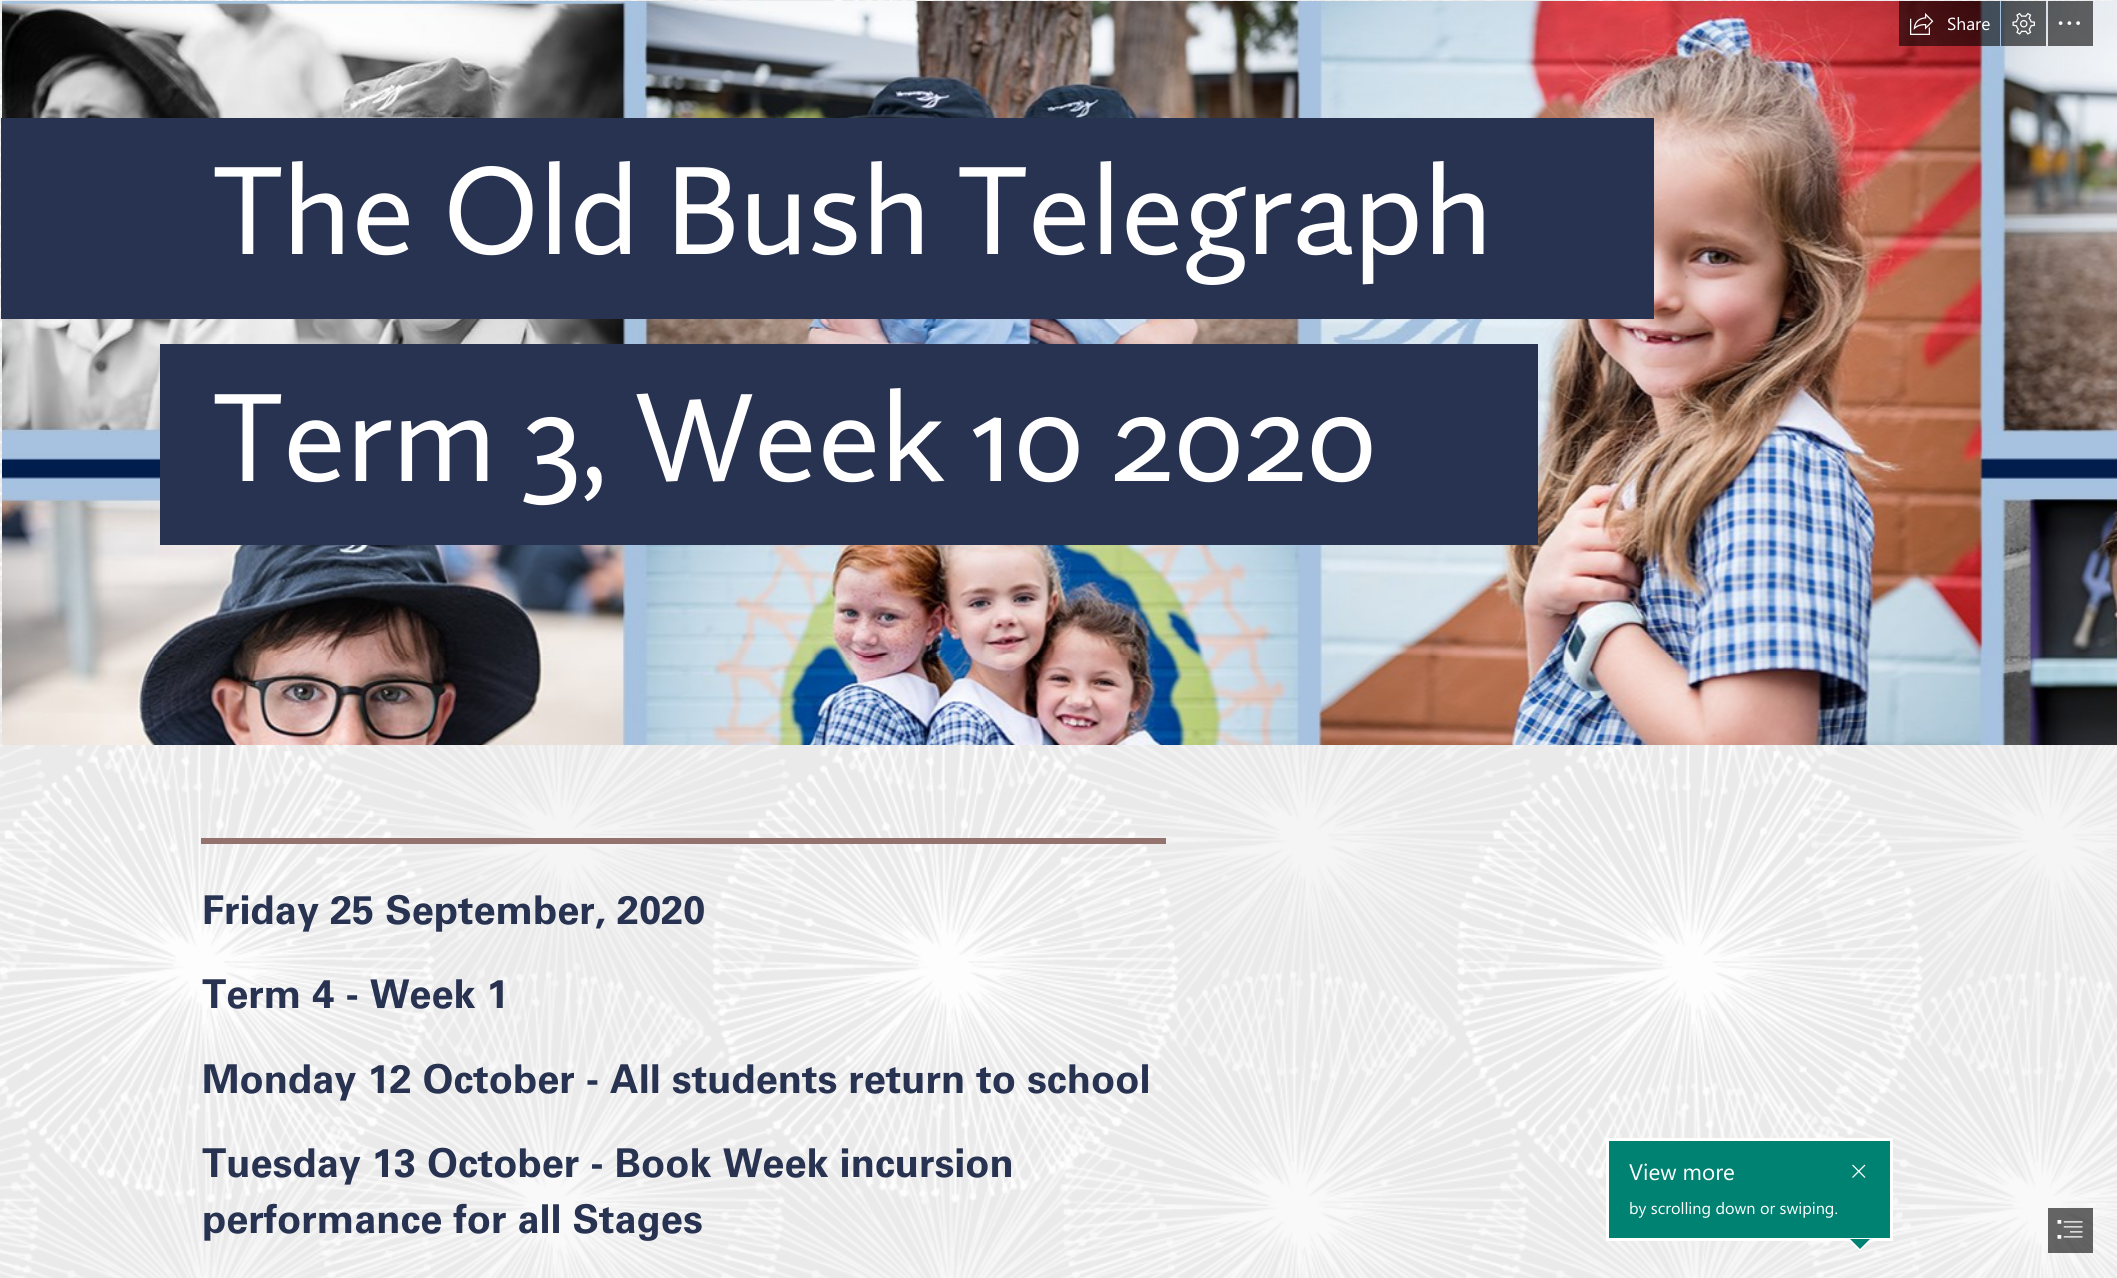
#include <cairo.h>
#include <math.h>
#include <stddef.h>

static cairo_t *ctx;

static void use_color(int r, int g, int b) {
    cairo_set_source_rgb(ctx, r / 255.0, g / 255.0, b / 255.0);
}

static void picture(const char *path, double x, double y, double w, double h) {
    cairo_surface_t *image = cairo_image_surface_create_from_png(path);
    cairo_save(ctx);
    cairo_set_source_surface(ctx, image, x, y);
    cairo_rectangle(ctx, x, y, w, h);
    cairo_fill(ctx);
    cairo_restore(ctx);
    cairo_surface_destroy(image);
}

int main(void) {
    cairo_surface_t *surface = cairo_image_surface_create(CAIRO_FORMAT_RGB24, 2117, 1278);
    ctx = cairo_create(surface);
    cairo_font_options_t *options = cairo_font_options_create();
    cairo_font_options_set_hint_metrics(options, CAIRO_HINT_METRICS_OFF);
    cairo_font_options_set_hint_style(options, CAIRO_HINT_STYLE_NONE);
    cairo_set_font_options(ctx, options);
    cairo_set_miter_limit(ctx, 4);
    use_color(234, 234, 234);
    cairo_paint(ctx);
    picture("img4.png", 0, 0, 2117, 1278);
    picture("img5.png", 2, 1, 2115, 744);
    cairo_set_source_rgba(ctx, 0, 0, 0, 0.6);
    cairo_rectangle(ctx, 1899, 1, 101, 45);
    cairo_fill(ctx);
    picture("img1.png", 1910, 13, 24, 22);
    cairo_select_font_face(ctx, "Segoe UI", CAIRO_FONT_SLANT_NORMAL, CAIRO_FONT_WEIGHT_NORMAL);
    cairo_set_font_size(ctx, 17.5);
    use_color(255, 255, 255);
    cairo_move_to(ctx, 1947, 30);
    cairo_show_text(ctx, "Share");
    cairo_set_source_rgba(ctx, 0, 0, 0, 0.6);
    cairo_rectangle(ctx, 2001, 1, 45, 45);
    cairo_fill(ctx);
    picture("img2.png", 2012, 12, 23, 23);
    cairo_rectangle(ctx, 2048, 1, 45, 45);
    cairo_fill(ctx);
    picture("img3.png", 2058, 21, 22, 4);
    use_color(40, 50, 81);
    cairo_rectangle(ctx, 1, 118, 1653, 201);
    cairo_fill(ctx);
    cairo_select_font_face(ctx, "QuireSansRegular", CAIRO_FONT_SLANT_NORMAL, CAIRO_FONT_WEIGHT_NORMAL);
    cairo_set_font_size(ctx, 124);
    use_color(255, 255, 255);
    cairo_move_to(ctx, 213, 254);
    cairo_show_text(ctx, "The Old Bush Telegraph");
    use_color(40, 50, 81);
    cairo_rectangle(ctx, 160, 344, 1378, 201);
    cairo_fill(ctx);
    use_color(255, 255, 255);
    cairo_move_to(ctx, 213, 481);
    cairo_show_text(ctx, "Term 3, Week 10 2020");
    use_color(148, 115, 111);
    cairo_rectangle(ctx, 201, 838, 965, 6);
    cairo_fill(ctx);
    cairo_select_font_face(ctx, "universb", CAIRO_FONT_SLANT_NORMAL, CAIRO_FONT_WEIGHT_BOLD);
    cairo_set_font_size(ctx, 39.7);
    use_color(40, 50, 81);
    cairo_move_to(ctx, 202, 924);
    cairo_show_text(ctx, "Friday 25 September, 2020");
    cairo_move_to(ctx, 202, 1008);
    cairo_show_text(ctx, "Term 4 - Week 1");
    cairo_move_to(ctx, 202, 1093);
    cairo_show_text(ctx, "Monday 12 October - All students return to school");
    cairo_move_to(ctx, 202, 1177);
    cairo_show_text(ctx, "Tuesday 13 October - Book Week incursion");
    cairo_move_to(ctx, 202, 1233);
    cairo_show_text(ctx, "performance for all Stages");
    use_color(0, 130, 114);
    cairo_rectangle(ctx, 1607.5, 1139.5, 284, 100);
    cairo_fill_preserve(ctx);
    use_color(255, 255, 255);
    cairo_set_line_width(ctx, 3);
    cairo_stroke(ctx);
    cairo_select_font_face(ctx, "Segoe UI", CAIRO_FONT_SLANT_NORMAL, CAIRO_FONT_WEIGHT_NORMAL);
    cairo_set_font_size(ctx, 22.5);
    cairo_move_to(ctx, 1629, 1180);
    cairo_show_text(ctx, "View more");
    cairo_set_font_size(ctx, 16.25);
    cairo_move_to(ctx, 1629, 1214);
    cairo_show_text(ctx, "by scrolling down or swiping.");
    picture("img6.png", 1852, 1164, 14, 14);
    cairo_new_path(ctx);
    cairo_move_to(ctx, 1847.5, 1239);
    cairo_line_to(ctx, 1872.5, 1239);
    cairo_line_to(ctx, 1860, 1251);
    cairo_close_path(ctx);
    cairo_fill(ctx);
    use_color(0, 130, 114);
    cairo_new_path(ctx);
    cairo_move_to(ctx, 1850, 1239);
    cairo_line_to(ctx, 1870, 1239);
    cairo_line_to(ctx, 1860, 1249);
    cairo_close_path(ctx);
    cairo_fill(ctx);
    cairo_set_source_rgba(ctx, 0, 0, 0, 0.6);
    cairo_rectangle(ctx, 2048, 1208, 45, 45);
    cairo_fill(ctx);
    picture("img7.png", 2057, 1220, 26, 19);
    cairo_surface_write_to_png(surface, "result.png");
    cairo_font_options_destroy(options);
    cairo_destroy(ctx);
    cairo_surface_destroy(surface);
    return 0;
}
